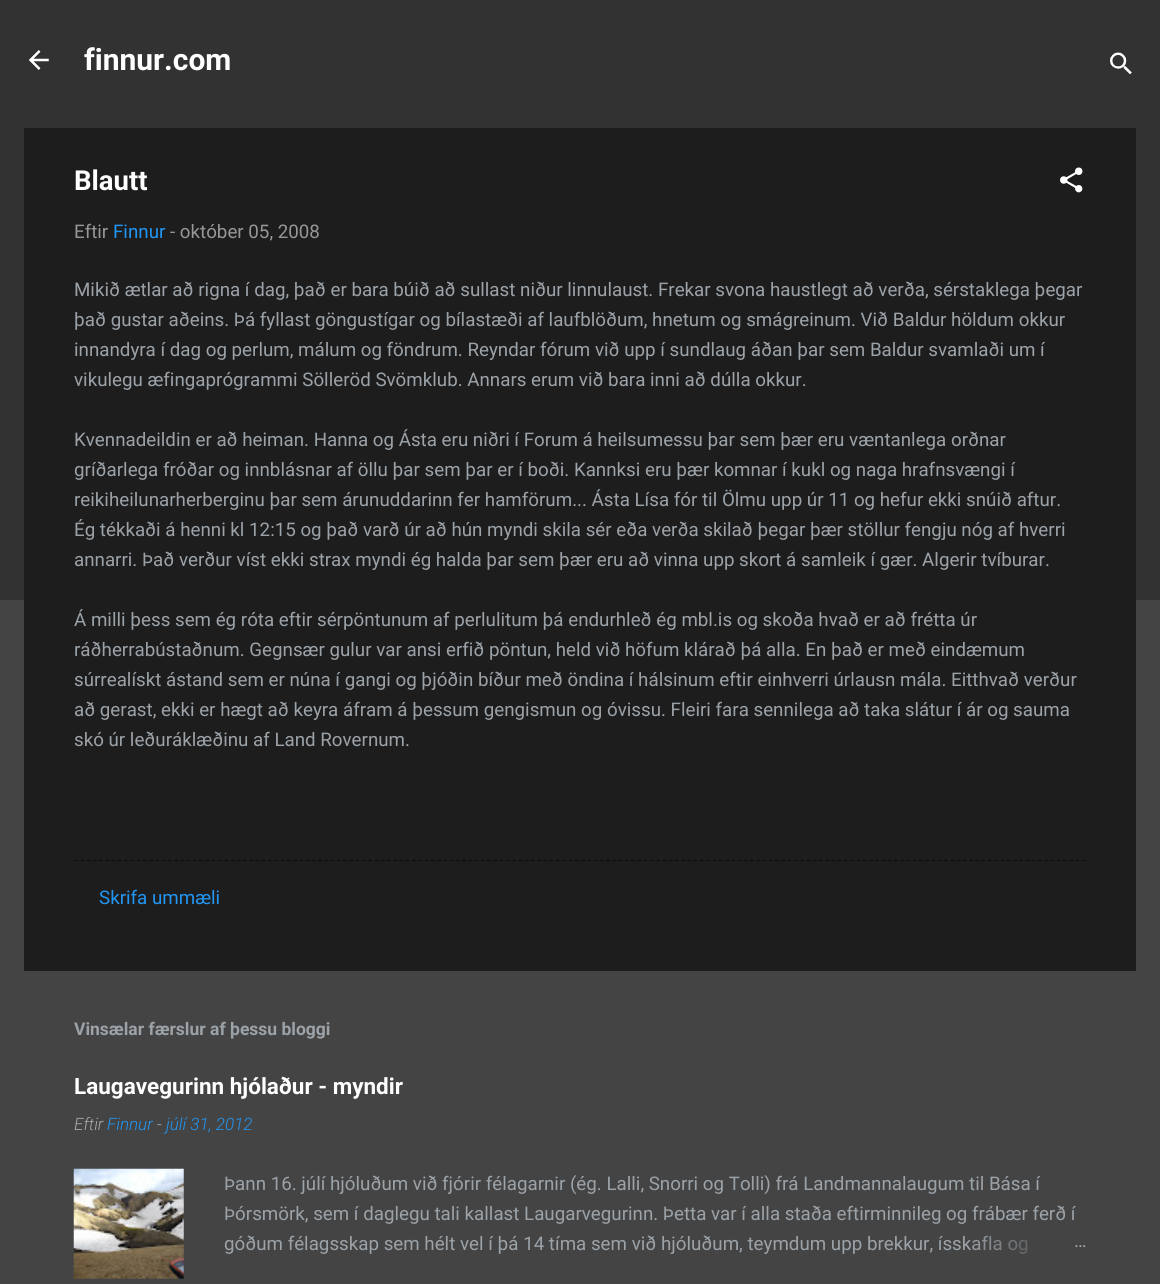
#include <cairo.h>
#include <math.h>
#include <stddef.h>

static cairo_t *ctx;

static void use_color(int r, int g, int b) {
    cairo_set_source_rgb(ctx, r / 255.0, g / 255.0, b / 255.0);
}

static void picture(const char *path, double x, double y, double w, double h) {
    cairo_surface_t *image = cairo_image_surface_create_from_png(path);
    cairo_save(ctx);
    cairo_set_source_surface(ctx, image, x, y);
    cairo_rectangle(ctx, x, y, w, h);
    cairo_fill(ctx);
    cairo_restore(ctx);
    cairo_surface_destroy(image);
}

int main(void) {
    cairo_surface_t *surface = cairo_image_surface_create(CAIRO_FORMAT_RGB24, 1160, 1284);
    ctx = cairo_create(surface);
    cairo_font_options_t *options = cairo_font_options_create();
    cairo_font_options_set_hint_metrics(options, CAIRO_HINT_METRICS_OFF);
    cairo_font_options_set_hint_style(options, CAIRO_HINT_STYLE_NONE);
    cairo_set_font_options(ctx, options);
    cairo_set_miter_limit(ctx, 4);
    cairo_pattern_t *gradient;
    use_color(68, 68, 68);
    cairo_paint(ctx);
    use_color(50, 50, 50);
    cairo_rectangle(ctx, 0, 0, 1160, 600);
    cairo_fill(ctx);
    picture("img1.png", 29, 50, 20, 20);
    cairo_select_font_face(ctx, "Roboto", CAIRO_FONT_SLANT_NORMAL, CAIRO_FONT_WEIGHT_BOLD);
    cairo_set_font_size(ctx, 30);
    use_color(255, 255, 255);
    cairo_move_to(ctx, 84, 70);
    cairo_show_text(ctx, "finnur.com");
    picture("img2.png", 1110, 52, 22, 23);
    use_color(29, 29, 29);
    cairo_rectangle(ctx, 24, 128, 1112, 843);
    cairo_fill(ctx);
    cairo_set_font_size(ctx, 27.5);
    use_color(255, 255, 255);
    cairo_move_to(ctx, 74, 190);
    cairo_show_text(ctx, "Blautt");
    picture("img3.png", 1060, 167, 23, 26);
    cairo_select_font_face(ctx, "Roboto", CAIRO_FONT_SLANT_NORMAL, CAIRO_FONT_WEIGHT_NORMAL);
    cairo_set_font_size(ctx, 18.75);
    use_color(151, 151, 151);
    cairo_move_to(ctx, 74, 238);
    cairo_show_text(ctx, "Eftir");
    use_color(33, 150, 243);
    cairo_move_to(ctx, 113, 238);
    cairo_show_text(ctx, "Finnur");
    use_color(151, 151, 151);
    cairo_move_to(ctx, 170, 238);
    cairo_show_text(ctx, "- október 05, 2008");
    use_color(155, 162, 168);
    cairo_move_to(ctx, 74, 296);
    cairo_show_text(ctx, "Mikið ætlar að rigna í dag, það er bara búið að sullast niður linnulaust. Frekar svona haustlegt að verða, sérstaklega þegar");
    cairo_move_to(ctx, 74, 326);
    cairo_show_text(ctx, "það gustar aðeins. Þá fyllast göngustígar og bílastæði af laufblöðum, hnetum og smágreinum. Við Baldur höldum okkur");
    cairo_move_to(ctx, 74, 356);
    cairo_show_text(ctx, "innandyra í dag og perlum, málum og föndrum. Reyndar fórum við upp í sundlaug áðan þar sem Baldur svamlaði um í");
    cairo_move_to(ctx, 74, 386);
    cairo_show_text(ctx, "vikulegu æfingaprógrammi Sölleröd Svömklub. Annars erum við bara inni að dúlla okkur.");
    cairo_move_to(ctx, 74, 446);
    cairo_show_text(ctx, "Kvennadeildin er að heiman. Hanna og Ásta eru niðri í Forum á heilsumessu þar sem þær eru væntanlega orðnar");
    cairo_move_to(ctx, 74, 476);
    cairo_show_text(ctx, "gríðarlega fróðar og innblásnar af öllu þar sem þar er í boði. Kannksi eru þær komnar í kukl og naga hrafnsvængi í");
    cairo_move_to(ctx, 74, 506);
    cairo_show_text(ctx, "reikiheilunarherberginu þar sem árunuddarinn fer hamförum... Ásta Lísa fór til Ölmu upp úr 11 og hefur ekki snúið aftur.");
    cairo_move_to(ctx, 74, 536);
    cairo_show_text(ctx, "Ég tékkaði á henni kl 12:15 og það varð úr að hún myndi skila sér eða verða skilað þegar þær stöllur fengju nóg af hverri");
    cairo_move_to(ctx, 74, 566);
    cairo_show_text(ctx, "annarri. Það verður víst ekki strax myndi ég halda þar sem þær eru að vinna upp skort á samleik í gær. Algerir tvíburar.");
    cairo_move_to(ctx, 74, 626);
    cairo_show_text(ctx, "Á milli þess sem ég róta eftir sérpöntunum af perlulitum þá endurhleð ég mbl.is og skoða hvað er að frétta úr");
    cairo_move_to(ctx, 74, 656);
    cairo_show_text(ctx, "ráðherrabústaðnum. Gegnsær gulur var ansi erfið pöntun, held við höfum klárað þá alla. En það er með eindæmum");
    cairo_move_to(ctx, 74, 686);
    cairo_show_text(ctx, "súrrealískt ástand sem er núna í gangi og þjóðin bíður með öndina í hálsinum eftir einhverri úrlausn mála. Eitthvað verður");
    cairo_move_to(ctx, 74, 716);
    cairo_show_text(ctx, "að gerast, ekki er hægt að keyra áfram á þessum gengismun og óvissu. Fleiri fara sennilega að taka slátur í ár og sauma");
    cairo_move_to(ctx, 74, 746);
    cairo_show_text(ctx, "skó úr leðuráklæðinu af Land Rovernum.");
    cairo_new_path(ctx);
    cairo_move_to(ctx, 74, 860.5);
    cairo_line_to(ctx, 1086, 860.5);
    use_color(13, 13, 13);
    cairo_set_line_width(ctx, 1.2);
    cairo_set_dash(ctx, (double[]){3.75, 2.51}, 2, 0);
    cairo_stroke(ctx);
    use_color(33, 150, 243);
    cairo_move_to(ctx, 99, 904);
    cairo_show_text(ctx, "Skrifa ummæli");
    cairo_select_font_face(ctx, "Roboto", CAIRO_FONT_SLANT_NORMAL, CAIRO_FONT_WEIGHT_BOLD);
    cairo_set_font_size(ctx, 17.5);
    use_color(155, 162, 168);
    cairo_move_to(ctx, 74, 1035);
    cairo_show_text(ctx, "Vinsælar færslur af þessu bloggi");
    cairo_set_font_size(ctx, 22.5);
    use_color(255, 255, 255);
    cairo_move_to(ctx, 74, 1094);
    cairo_show_text(ctx, "Laugavegurinn hjólaður - myndir");
    cairo_select_font_face(ctx, "Roboto Light", CAIRO_FONT_SLANT_ITALIC, CAIRO_FONT_WEIGHT_NORMAL);
    cairo_set_font_size(ctx, 17);
    use_color(169, 169, 169);
    cairo_move_to(ctx, 74, 1130);
    cairo_show_text(ctx, "Eftir");
    use_color(33, 150, 243);
    cairo_move_to(ctx, 107, 1130);
    cairo_show_text(ctx, "Finnur");
    use_color(169, 169, 169);
    cairo_move_to(ctx, 157, 1130);
    cairo_show_text(ctx, "-");
    use_color(33, 150, 243);
    cairo_move_to(ctx, 166, 1130);
    cairo_show_text(ctx, "júlí 31, 2012");
    picture("img4.png", 73, 1168, 111, 111);
    cairo_select_font_face(ctx, "Roboto", CAIRO_FONT_SLANT_NORMAL, CAIRO_FONT_WEIGHT_NORMAL);
    cairo_set_font_size(ctx, 18.75);
    use_color(155, 162, 168);
    cairo_move_to(ctx, 224, 1190);
    cairo_show_text(ctx, "Þann 16. júlí hjóluðum við fjórir félagarnir (ég. Lalli, Snorri og Tolli) frá Landmannalaugum til Bása í");
    cairo_move_to(ctx, 224, 1220);
    cairo_show_text(ctx, "Þórsmörk, sem í daglegu tali kallast Laugarvegurinn. Þetta var í alla staða eftirminnileg og frábær ferð í");
    cairo_move_to(ctx, 224, 1250);
    cairo_show_text(ctx, "góðum félagsskap sem hélt vel í þá 14 tíma sem við hjóluðum, teymdum upp brekkur, ísskafla og");
    gradient = cairo_pattern_create_linear(1086, 1244, 966, 1244);
    cairo_pattern_add_color_stop_rgba(gradient, 0, 0.267, 0.267, 0.267, 1);
    cairo_pattern_add_color_stop_rgba(gradient, 0.2, 0.267, 0.267, 0.267, 1);
    cairo_pattern_add_color_stop_rgba(gradient, 1, 0.267, 0.267, 0.267, 0);
    cairo_set_source(ctx, gradient);
    cairo_pattern_destroy(gradient);
    cairo_rectangle(ctx, 969, 1235, 59, 19);
    cairo_fill(ctx);
    use_color(155, 162, 168);
    cairo_move_to(ctx, 1074, 1247);
    cairo_show_text(ctx, "…");
    cairo_surface_write_to_png(surface, "result.png");
    cairo_font_options_destroy(options);
    cairo_destroy(ctx);
    cairo_surface_destroy(surface);
    return 0;
}
